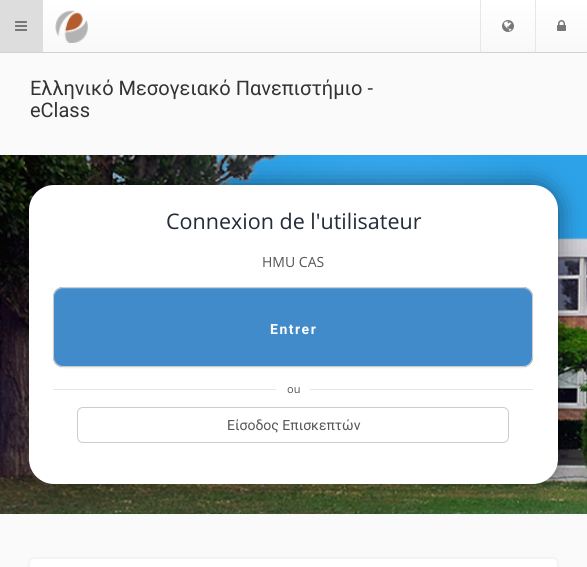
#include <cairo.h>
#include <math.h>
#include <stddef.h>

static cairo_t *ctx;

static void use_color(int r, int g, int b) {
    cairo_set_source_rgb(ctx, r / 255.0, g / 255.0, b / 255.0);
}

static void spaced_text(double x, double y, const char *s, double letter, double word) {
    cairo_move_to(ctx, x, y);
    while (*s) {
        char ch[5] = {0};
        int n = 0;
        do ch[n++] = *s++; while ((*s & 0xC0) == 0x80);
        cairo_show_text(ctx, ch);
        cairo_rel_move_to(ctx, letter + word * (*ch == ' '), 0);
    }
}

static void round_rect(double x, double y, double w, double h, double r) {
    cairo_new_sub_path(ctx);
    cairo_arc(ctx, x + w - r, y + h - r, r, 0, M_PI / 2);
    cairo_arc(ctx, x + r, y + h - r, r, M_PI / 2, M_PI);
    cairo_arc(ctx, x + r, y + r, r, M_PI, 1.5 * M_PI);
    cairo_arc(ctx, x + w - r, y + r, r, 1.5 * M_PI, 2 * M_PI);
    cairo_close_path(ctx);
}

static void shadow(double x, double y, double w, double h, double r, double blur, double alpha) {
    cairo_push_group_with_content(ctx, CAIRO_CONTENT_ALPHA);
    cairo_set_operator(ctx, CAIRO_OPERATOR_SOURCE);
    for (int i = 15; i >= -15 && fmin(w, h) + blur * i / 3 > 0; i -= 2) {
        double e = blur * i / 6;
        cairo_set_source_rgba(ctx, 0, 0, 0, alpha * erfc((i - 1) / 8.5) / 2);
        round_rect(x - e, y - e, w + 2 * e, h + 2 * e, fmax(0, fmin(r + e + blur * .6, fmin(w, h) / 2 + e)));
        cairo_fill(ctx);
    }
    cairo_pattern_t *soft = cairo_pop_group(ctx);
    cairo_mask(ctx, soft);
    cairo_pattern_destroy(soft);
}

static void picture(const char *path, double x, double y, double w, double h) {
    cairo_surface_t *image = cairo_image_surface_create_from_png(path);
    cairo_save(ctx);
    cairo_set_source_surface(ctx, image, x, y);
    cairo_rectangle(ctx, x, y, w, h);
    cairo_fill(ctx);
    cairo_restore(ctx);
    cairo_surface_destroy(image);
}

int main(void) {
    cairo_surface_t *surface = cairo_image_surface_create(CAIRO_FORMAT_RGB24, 587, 567);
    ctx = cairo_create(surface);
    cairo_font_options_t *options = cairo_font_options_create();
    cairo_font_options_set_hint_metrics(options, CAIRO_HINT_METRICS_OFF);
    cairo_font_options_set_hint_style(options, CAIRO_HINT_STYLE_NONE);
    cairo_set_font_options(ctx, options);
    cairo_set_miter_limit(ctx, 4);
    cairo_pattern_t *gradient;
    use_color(219, 219, 219);
    cairo_paint(ctx);
    use_color(0, 0, 0);
    shadow(0, 1, 587, 52, 0, 2.5, 0.07);
    gradient = cairo_pattern_create_linear(294, 0, 294, 52);
    cairo_pattern_add_color_stop_rgba(gradient, 0, 1, 1, 1, 1);
    cairo_pattern_add_color_stop_rgba(gradient, 1, 0.973, 0.973, 0.973, 1);
    cairo_set_source(ctx, gradient);
    cairo_pattern_destroy(gradient);
    cairo_rectangle(ctx, 43, 0, 544, 52);
    cairo_fill(ctx);
    use_color(221, 221, 221);
    cairo_rectangle(ctx, 0, 0, 43, 52);
    cairo_fill(ctx);
    picture("img1.png", 15, 21, 12, 10);
    picture("img2.png", 55, 10, 33, 33);
    use_color(231, 231, 231);
    cairo_rectangle(ctx, 480, 0, 1, 52);
    cairo_fill(ctx);
    picture("img3.png", 502, 20, 12, 12);
    cairo_rectangle(ctx, 535, 0, 1, 52);
    cairo_fill(ctx);
    picture("img4.png", 557, 20, 9, 11);
    use_color(250, 250, 250);
    cairo_rectangle(ctx, 0, 53, 587, 514);
    cairo_fill(ctx);
    cairo_select_font_face(ctx, "Roboto", CAIRO_FONT_SLANT_NORMAL, CAIRO_FONT_WEIGHT_NORMAL);
    cairo_set_font_size(ctx, 20);
    use_color(51, 51, 51);
    cairo_move_to(ctx, 30, 95);
    cairo_show_text(ctx, "Ελληνικό Μεσογειακό Πανεπιστήμιο -");
    cairo_move_to(ctx, 30, 117);
    cairo_show_text(ctx, "eClass");
    picture("img5.png", 0, 155, 587, 359);
    use_color(0, 0, 0);
    shadow(29, 185, 529, 299, 25, 12.5, 0.5);
    use_color(255, 255, 255);
    round_rect(29, 185, 529, 299, 25);
    cairo_fill(ctx);
    cairo_select_font_face(ctx, "Open Sans", CAIRO_FONT_SLANT_NORMAL, CAIRO_FONT_WEIGHT_NORMAL);
    cairo_set_font_size(ctx, 21.5);
    use_color(35, 44, 58);
    cairo_move_to(ctx, 166, 229);
    cairo_show_text(ctx, "Connexion de l'utilisateur");
    cairo_set_font_size(ctx, 14);
    use_color(85, 85, 85);
    cairo_move_to(ctx, 262, 267);
    cairo_show_text(ctx, "HMU CAS");
    use_color(0, 0, 0);
    shadow(53, 288, 480, 80, 10, 0.5, 0.07);
    use_color(66, 139, 202);
    round_rect(53, 287, 480, 80, 10);
    cairo_fill(ctx);
    use_color(94, 156, 210);
    cairo_new_path(ctx);
    cairo_move_to(ctx, 63, 289);
    cairo_line_to(ctx, 523, 289);
    cairo_curve_to(ctx, 528, 289, 532, 293, 532, 298);
    cairo_curve_to(ctx, 532, 293, 529, 288, 523, 288);
    cairo_line_to(ctx, 63, 288);
    cairo_curve_to(ctx, 57, 288, 54, 293, 54, 298);
    cairo_curve_to(ctx, 54, 293, 58, 289, 63, 289);
    cairo_close_path(ctx);
    cairo_fill(ctx);
    round_rect(53.5, 287.5, 479, 79, 9.5);
    use_color(204, 204, 204);
    cairo_set_line_width(ctx, 1);
    cairo_stroke(ctx);
    cairo_select_font_face(ctx, "Roboto", CAIRO_FONT_SLANT_NORMAL, CAIRO_FONT_WEIGHT_BOLD);
    use_color(255, 255, 255);
    spaced_text(270, 334, "Entrer", 1.5, 0);
    use_color(230, 230, 230);
    cairo_rectangle(ctx, 53, 389, 480, 1);
    cairo_fill(ctx);
    use_color(255, 255, 255);
    cairo_rectangle(ctx, 276, 389, 34, 1);
    cairo_fill(ctx);
    cairo_select_font_face(ctx, "Open Sans", CAIRO_FONT_SLANT_NORMAL, CAIRO_FONT_WEIGHT_NORMAL);
    cairo_set_font_size(ctx, 11);
    use_color(85, 85, 85);
    cairo_move_to(ctx, 287, 393);
    cairo_show_text(ctx, "ou");
    round_rect(77.5, 407.5, 431, 35, 5.5);
    use_color(204, 204, 204);
    cairo_stroke(ctx);
    cairo_select_font_face(ctx, "Roboto", CAIRO_FONT_SLANT_NORMAL, CAIRO_FONT_WEIGHT_NORMAL);
    cairo_set_font_size(ctx, 14);
    use_color(85, 85, 85);
    cairo_move_to(ctx, 227, 430);
    cairo_show_text(ctx, "Είσοδος Επισκεπτών");
    use_color(0, 0, 0);
    shadow(29, 558, 529, 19, 5, 1.5, 0.05);
    use_color(255, 255, 255);
    round_rect(30, 559, 527, 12, 4);
    cairo_fill(ctx);
    cairo_surface_write_to_png(surface, "result.png");
    cairo_font_options_destroy(options);
    cairo_destroy(ctx);
    cairo_surface_destroy(surface);
    return 0;
}
